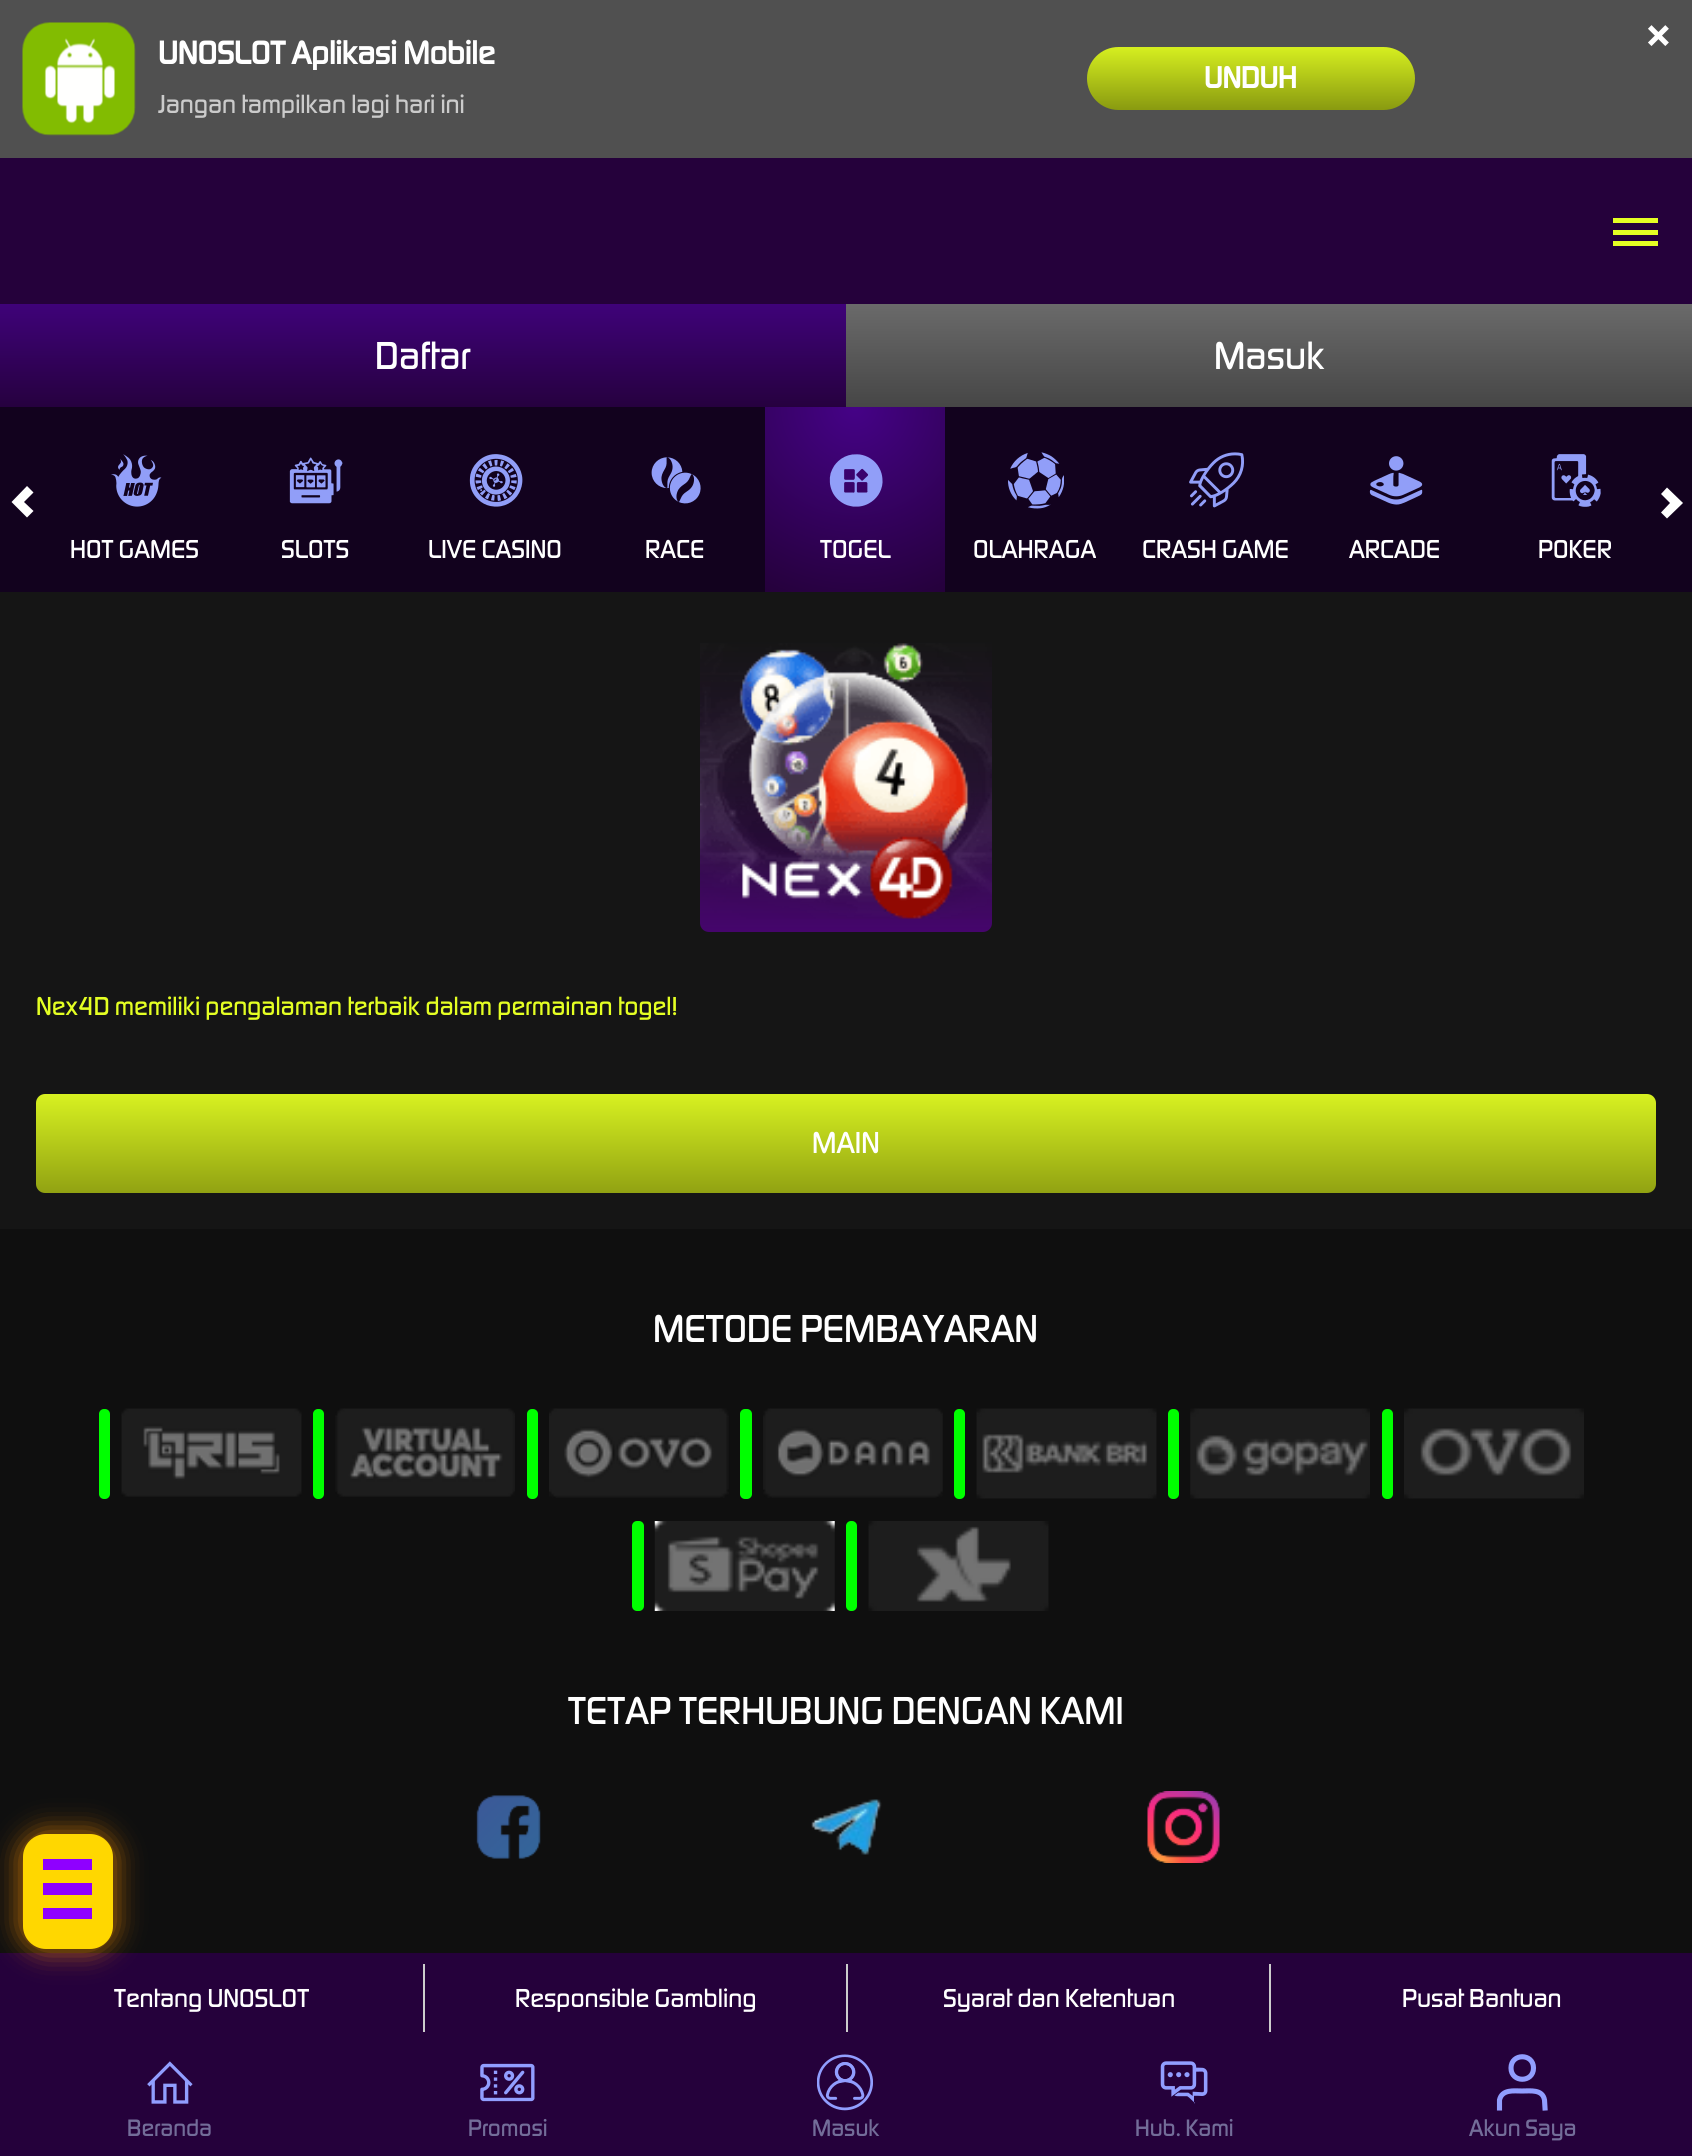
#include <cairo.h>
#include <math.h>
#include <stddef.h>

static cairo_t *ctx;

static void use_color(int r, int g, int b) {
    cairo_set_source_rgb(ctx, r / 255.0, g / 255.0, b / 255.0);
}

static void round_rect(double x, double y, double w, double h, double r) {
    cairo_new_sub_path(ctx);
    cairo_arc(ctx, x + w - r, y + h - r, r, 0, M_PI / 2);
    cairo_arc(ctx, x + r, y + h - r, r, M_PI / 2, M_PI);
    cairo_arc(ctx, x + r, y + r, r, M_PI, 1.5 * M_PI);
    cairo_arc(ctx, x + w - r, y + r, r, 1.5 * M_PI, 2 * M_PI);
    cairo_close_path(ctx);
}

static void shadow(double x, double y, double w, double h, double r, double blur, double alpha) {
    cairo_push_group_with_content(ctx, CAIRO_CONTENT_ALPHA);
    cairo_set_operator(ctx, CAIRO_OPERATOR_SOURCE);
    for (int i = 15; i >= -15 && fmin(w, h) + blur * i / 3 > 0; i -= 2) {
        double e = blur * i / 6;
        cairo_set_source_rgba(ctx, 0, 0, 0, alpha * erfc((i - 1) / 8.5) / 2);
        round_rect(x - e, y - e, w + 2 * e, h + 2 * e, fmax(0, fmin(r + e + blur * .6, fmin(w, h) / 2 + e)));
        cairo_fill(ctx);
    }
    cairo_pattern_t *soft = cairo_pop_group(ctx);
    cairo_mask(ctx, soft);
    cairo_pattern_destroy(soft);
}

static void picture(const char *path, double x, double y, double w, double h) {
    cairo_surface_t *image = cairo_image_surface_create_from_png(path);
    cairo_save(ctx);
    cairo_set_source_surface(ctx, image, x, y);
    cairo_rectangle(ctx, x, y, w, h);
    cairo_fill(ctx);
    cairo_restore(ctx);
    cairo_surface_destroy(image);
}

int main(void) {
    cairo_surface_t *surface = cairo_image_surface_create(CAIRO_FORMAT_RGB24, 1692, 2156);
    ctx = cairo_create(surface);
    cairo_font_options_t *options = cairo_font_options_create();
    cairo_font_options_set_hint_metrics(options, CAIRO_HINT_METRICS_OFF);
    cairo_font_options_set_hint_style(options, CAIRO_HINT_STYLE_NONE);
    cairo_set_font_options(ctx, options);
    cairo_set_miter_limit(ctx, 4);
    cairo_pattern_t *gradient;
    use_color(15, 15, 15);
    cairo_paint(ctx);
    use_color(80, 80, 80);
    cairo_rectangle(ctx, 0, 0, 1692, 158);
    cairo_fill(ctx);
    picture("img1.png", 22, 22, 114, 114);
    cairo_select_font_face(ctx, "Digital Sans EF", CAIRO_FONT_SLANT_NORMAL, CAIRO_FONT_WEIGHT_BOLD);
    cairo_set_font_size(ctx, 47);
    use_color(255, 255, 255);
    cairo_move_to(ctx, 1646, 52);
    cairo_show_text(ctx, "×");
    cairo_set_font_size(ctx, 33.75);
    cairo_move_to(ctx, 158, 64);
    cairo_show_text(ctx, "UNOSLOT Aplikasi Mobile");
    cairo_select_font_face(ctx, "Digital Sans EF Medium", CAIRO_FONT_SLANT_NORMAL, CAIRO_FONT_WEIGHT_NORMAL);
    cairo_set_font_size(ctx, 27);
    use_color(203, 203, 203);
    cairo_move_to(ctx, 158, 113);
    cairo_show_text(ctx, "Jangan tampilkan lagi hari ini");
    gradient = cairo_pattern_create_linear(1251, 47, 1251, 110);
    cairo_pattern_add_color_stop_rgba(gradient, 0, 0.839, 0.937, 0.125, 1);
    cairo_pattern_add_color_stop_rgba(gradient, 1, 0.537, 0.604, 0.063, 1);
    cairo_set_source(ctx, gradient);
    cairo_pattern_destroy(gradient);
    round_rect(1087, 47, 328, 63, 31.5);
    cairo_fill(ctx);
    cairo_select_font_face(ctx, "Digital Sans EF", CAIRO_FONT_SLANT_NORMAL, CAIRO_FONT_WEIGHT_BOLD);
    cairo_set_font_size(ctx, 31.5);
    use_color(255, 255, 255);
    cairo_move_to(ctx, 1204, 88);
    cairo_show_text(ctx, "UNDUH");
    use_color(37, 1, 59);
    cairo_rectangle(ctx, 0, 158, 1692, 146);
    cairo_fill(ctx);
    use_color(228, 255, 35);
    cairo_rectangle(ctx, 1613, 230, 45, 5);
    cairo_fill(ctx);
    cairo_rectangle(ctx, 1613, 218, 45, 5);
    cairo_fill(ctx);
    cairo_rectangle(ctx, 1613, 241, 45, 5);
    cairo_fill(ctx);
    gradient = cairo_pattern_create_linear(423, 304, 423, 407);
    cairo_pattern_add_color_stop_rgba(gradient, 0, 0.247, 0.008, 0.475, 1);
    cairo_pattern_add_color_stop_rgba(gradient, 1, 0.149, 0.004, 0.247, 1);
    cairo_set_source(ctx, gradient);
    cairo_pattern_destroy(gradient);
    cairo_rectangle(ctx, 0, 304, 846, 103);
    cairo_fill(ctx);
    cairo_select_font_face(ctx, "Digital Sans EF Medium", CAIRO_FONT_SLANT_NORMAL, CAIRO_FONT_WEIGHT_NORMAL);
    cairo_set_font_size(ctx, 40.5);
    use_color(255, 255, 255);
    cairo_move_to(ctx, 375, 369);
    cairo_show_text(ctx, "Daftar");
    gradient = cairo_pattern_create_linear(1269, 304, 1269, 407);
    cairo_pattern_add_color_stop_rgba(gradient, 0, 0.416, 0.416, 0.416, 1);
    cairo_pattern_add_color_stop_rgba(gradient, 1, 0.275, 0.275, 0.275, 1);
    cairo_set_source(ctx, gradient);
    cairo_pattern_destroy(gradient);
    cairo_rectangle(ctx, 846, 304, 846, 103);
    cairo_fill(ctx);
    use_color(255, 255, 255);
    cairo_move_to(ctx, 1214, 369);
    cairo_show_text(ctx, "Masuk");
    use_color(18, 2, 30);
    cairo_rectangle(ctx, 0, 407, 1692, 185);
    cairo_fill(ctx);
    use_color(255, 255, 255);
    cairo_new_path(ctx);
    cairo_move_to(ctx, 27, 517.5);
    cairo_line_to(ctx, 33.5, 511);
    cairo_line_to(ctx, 24, 502);
    cairo_line_to(ctx, 33.5, 492.5);
    cairo_line_to(ctx, 27, 486);
    cairo_line_to(ctx, 11.5, 502);
    cairo_close_path(ctx);
    cairo_fill(ctx);
    cairo_new_path(ctx);
    cairo_move_to(ctx, 1667, 518.5);
    cairo_line_to(ctx, 1661, 512.5);
    cairo_line_to(ctx, 1670, 503);
    cairo_line_to(ctx, 1661, 494);
    cairo_line_to(ctx, 1667, 487.5);
    cairo_line_to(ctx, 1683, 503);
    cairo_close_path(ctx);
    cairo_fill(ctx);
    picture("img2.png", 111, 454, 51, 53);
    cairo_set_font_size(ctx, 27);
    cairo_move_to(ctx, 70, 558);
    cairo_show_text(ctx, "HOT GAMES");
    picture("img3.png", 289, 457, 54, 47);
    cairo_move_to(ctx, 281, 558);
    cairo_show_text(ctx, "SLOTS");
    picture("img4.png", 469, 454, 54, 53);
    cairo_move_to(ctx, 428, 558);
    cairo_show_text(ctx, "LIVE CASINO");
    picture("img5.png", 651, 457, 50, 47);
    cairo_move_to(ctx, 645, 558);
    cairo_show_text(ctx, "RACE");
    gradient = cairo_pattern_create_radial(855, 407, 0, 855, 407, 205);
    cairo_pattern_add_color_stop_rgba(gradient, 0, 0.271, 0.008, 0.529, 1);
    cairo_pattern_add_color_stop_rgba(gradient, 1, 0.145, 0.004, 0.231, 1);
    cairo_set_source(ctx, gradient);
    cairo_pattern_destroy(gradient);
    cairo_rectangle(ctx, 765, 407, 180, 185);
    cairo_fill(ctx);
    picture("img6.png", 829, 454, 54, 53);
    use_color(255, 255, 255);
    cairo_move_to(ctx, 820, 558);
    cairo_show_text(ctx, "TOGEL");
    picture("img7.png", 1008, 452, 56, 57);
    cairo_move_to(ctx, 973, 558);
    cairo_show_text(ctx, "OLAHRAGA");
    picture("img8.png", 1189, 452, 55, 56);
    cairo_move_to(ctx, 1142, 558);
    cairo_show_text(ctx, "CRASH GAME");
    picture("img9.png", 1369, 456, 54, 49);
    cairo_move_to(ctx, 1349, 558);
    cairo_show_text(ctx, "ARCADE");
    picture("img10.png", 1551, 454, 50, 53);
    cairo_move_to(ctx, 1538, 558);
    cairo_show_text(ctx, "POKER");
    use_color(21, 21, 21);
    cairo_rectangle(ctx, 0, 592, 1692, 637);
    cairo_fill(ctx);
    gradient = cairo_pattern_create_linear(846, 639, 846, 932);
    cairo_pattern_add_color_stop_rgba(gradient, 0, 0.082, 0.082, 0.082, 1);
    cairo_pattern_add_color_stop_rgba(gradient, 0.5, 0.145, 0.063, 0.196, 1);
    cairo_pattern_add_color_stop_rgba(gradient, 1, 0.271, 0.02, 0.424, 1);
    cairo_set_source(ctx, gradient);
    cairo_pattern_destroy(gradient);
    cairo_new_path(ctx);
    cairo_move_to(ctx, 700, 639);
    cairo_line_to(ctx, 992, 639);
    cairo_line_to(ctx, 992, 923);
    cairo_curve_to(ctx, 992, 928, 988, 932, 983, 932);
    cairo_line_to(ctx, 709, 932);
    cairo_curve_to(ctx, 704, 932, 700, 928, 700, 923);
    cairo_close_path(ctx);
    cairo_fill(ctx);
    picture("img11.png", 700, 643, 292, 276);
    use_color(228, 255, 35);
    cairo_move_to(ctx, 36, 1015);
    cairo_show_text(ctx, "Nex4D memiliki pengalaman terbaik dalam permainan togel!");
    gradient = cairo_pattern_create_linear(846, 1093, 846, 1193);
    cairo_pattern_add_color_stop_rgba(gradient, 0, 0.847, 0.949, 0.129, 1);
    cairo_pattern_add_color_stop_rgba(gradient, 1, 0.569, 0.635, 0.071, 1);
    cairo_set_source(ctx, gradient);
    cairo_pattern_destroy(gradient);
    round_rect(36, 1094, 1620, 99, 9);
    cairo_fill(ctx);
    cairo_set_font_size(ctx, 31.5);
    use_color(255, 255, 255);
    cairo_move_to(ctx, 812, 1153);
    cairo_show_text(ctx, "MAIN");
    use_color(37, 1, 59);
    cairo_rectangle(ctx, 0, 1953, 1692, 203);
    cairo_fill(ctx);
    use_color(255, 145, 0);
    shadow(20, 1832, 95, 119, 25, 13.5, 0.7);
    use_color(255, 215, 0);
    round_rect(23, 1834, 90, 115, 23);
    cairo_fill(ctx);
    use_color(143, 0, 255);
    cairo_rectangle(ctx, 43, 1859, 49, 11);
    cairo_fill(ctx);
    cairo_rectangle(ctx, 43, 1883, 49, 12);
    cairo_fill(ctx);
    cairo_rectangle(ctx, 43, 1908, 49, 11);
    cairo_fill(ctx);
    cairo_set_font_size(ctx, 40.5);
    use_color(255, 255, 255);
    cairo_move_to(ctx, 653, 1342);
    cairo_show_text(ctx, "METODE PEMBAYARAN");
    use_color(0, 255, 0);
    round_rect(99, 1409, 11, 90, 5);
    cairo_fill(ctx);
    picture("img12.png", 121, 1408, 181, 89);
    round_rect(313, 1409, 11, 90, 5);
    cairo_fill(ctx);
    picture("img13.png", 335, 1408, 180, 89);
    round_rect(527, 1409, 11, 90, 5);
    cairo_fill(ctx);
    picture("img14.png", 549, 1408, 180, 90);
    round_rect(740, 1409, 12, 90, 5);
    cairo_fill(ctx);
    picture("img15.png", 763, 1408, 180, 90);
    round_rect(954, 1409, 11, 90, 5);
    cairo_fill(ctx);
    picture("img16.png", 976, 1408, 181, 91);
    round_rect(1168, 1409, 11, 90, 5);
    cairo_fill(ctx);
    picture("img17.png", 1190, 1408, 180, 91);
    round_rect(1382, 1409, 11, 90, 5);
    cairo_fill(ctx);
    picture("img18.png", 1404, 1408, 180, 91);
    round_rect(632, 1521, 12, 90, 5);
    cairo_fill(ctx);
    picture("img19.png", 654, 1521, 181, 90);
    round_rect(846, 1521, 11, 90, 5);
    cairo_fill(ctx);
    picture("img20.png", 868, 1521, 181, 90);
    use_color(255, 255, 255);
    cairo_move_to(ctx, 568, 1724);
    cairo_show_text(ctx, "TETAP TERHUBUNG DENGAN KAMI");
    picture("img21.png", 476, 1795, 65, 64);
    picture("img22.png", 811, 1799, 71, 56);
    picture("img23.png", 1147, 1791, 73, 72);
    cairo_set_font_size(ctx, 27);
    cairo_move_to(ctx, 114, 2007);
    cairo_show_text(ctx, "Tentang UNOSLOT");
    use_color(204, 204, 204);
    cairo_rectangle(ctx, 423, 1964, 2, 68);
    cairo_fill(ctx);
    use_color(255, 255, 255);
    cairo_move_to(ctx, 515, 2007);
    cairo_show_text(ctx, "Responsible Gambling");
    use_color(204, 204, 204);
    cairo_rectangle(ctx, 846, 1964, 2, 68);
    cairo_fill(ctx);
    use_color(255, 255, 255);
    cairo_move_to(ctx, 943, 2007);
    cairo_show_text(ctx, "Syarat dan Ketentuan");
    use_color(204, 204, 204);
    cairo_rectangle(ctx, 1269, 1964, 2, 68);
    cairo_fill(ctx);
    use_color(255, 255, 255);
    cairo_move_to(ctx, 1402, 2007);
    cairo_show_text(ctx, "Pusat Bantuan");
    picture("img24.png", 147, 2061, 46, 43);
    cairo_set_font_size(ctx, 24.75);
    use_color(115, 109, 153);
    cairo_move_to(ctx, 127, 2136);
    cairo_show_text(ctx, "Beranda");
    picture("img25.png", 480, 2063, 55, 39);
    cairo_move_to(ctx, 468, 2136);
    cairo_show_text(ctx, "Promosi");
    picture("img26.png", 817, 2054, 56, 57);
    cairo_move_to(ctx, 812, 2136);
    cairo_show_text(ctx, "Masuk");
    picture("img27.png", 1160, 2061, 48, 43);
    cairo_move_to(ctx, 1135, 2136);
    cairo_show_text(ctx, "Hub. Kami");
    cairo_new_path(ctx);
    cairo_move_to(ctx, 1545, 2108);
    cairo_line_to(ctx, 1544.5, 2100);
    cairo_curve_to(ctx, 1542.5, 2089, 1530.5, 2091, 1522, 2091);
    cairo_curve_to(ctx, 1514, 2091, 1502, 2089, 1499.5, 2100);
    cairo_line_to(ctx, 1499.5, 2108);
    cairo_move_to(ctx, 1533.5, 2068);
    cairo_curve_to(ctx, 1533.5, 2083, 1511, 2083, 1511, 2068);
    cairo_curve_to(ctx, 1511, 2053, 1533.5, 2053, 1533.5, 2068);
    cairo_close_path(ctx);
    use_color(145, 158, 255);
    cairo_set_line_width(ctx, 5.1);
    cairo_set_line_cap(ctx, CAIRO_LINE_CAP_SQUARE);
    cairo_set_line_join(ctx, CAIRO_LINE_JOIN_ROUND);
    cairo_stroke(ctx);
    use_color(115, 109, 153);
    cairo_move_to(ctx, 1469, 2136);
    cairo_show_text(ctx, "Akun Saya");
    cairo_surface_write_to_png(surface, "result.png");
    cairo_font_options_destroy(options);
    cairo_destroy(ctx);
    cairo_surface_destroy(surface);
    return 0;
}
